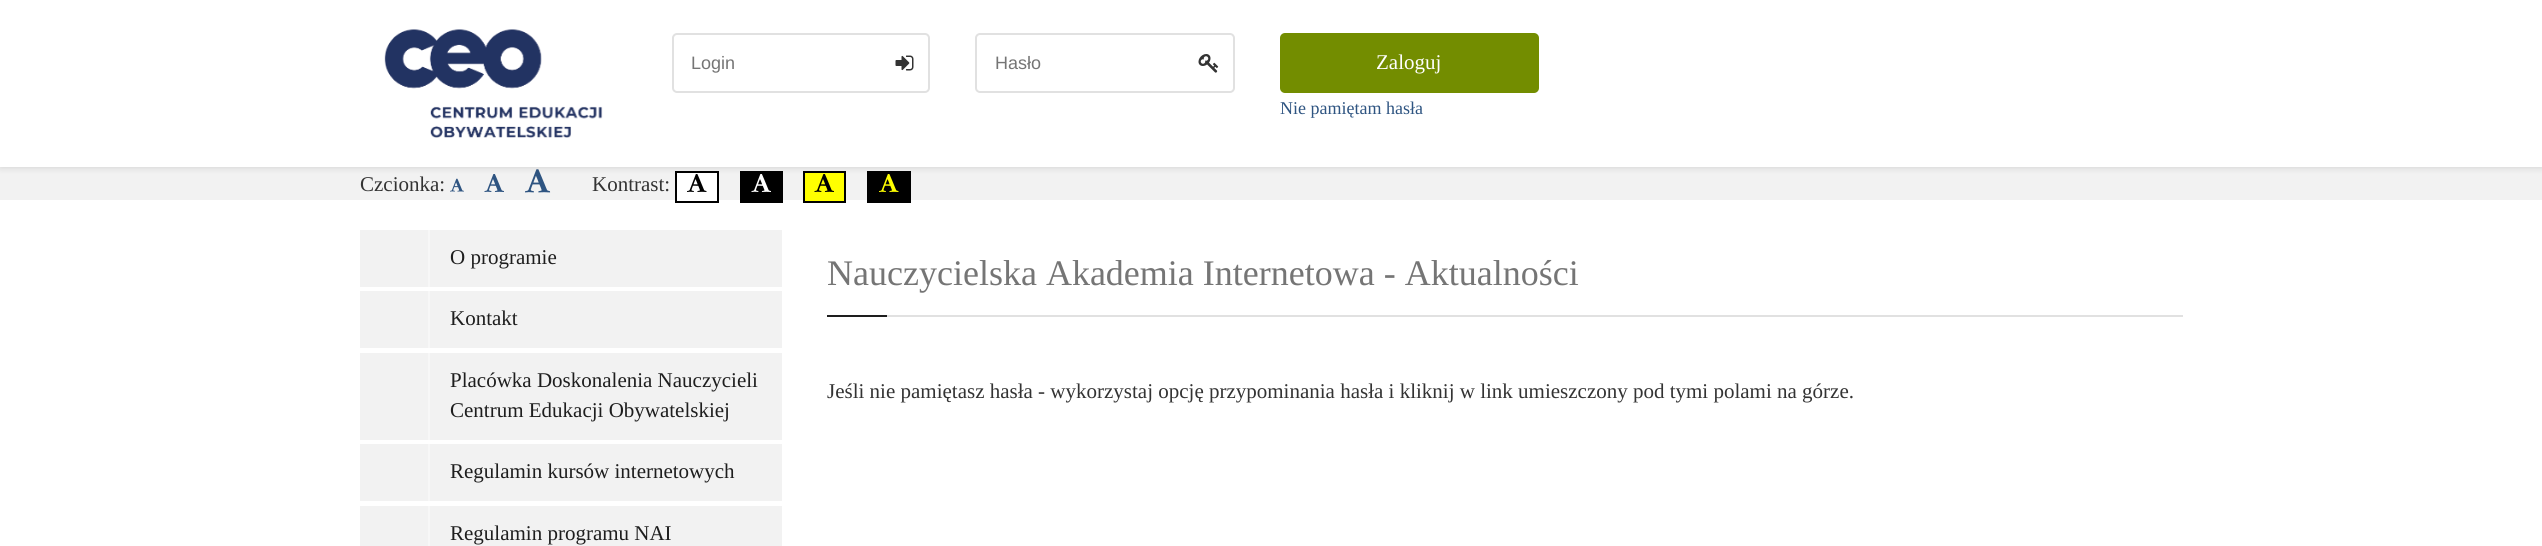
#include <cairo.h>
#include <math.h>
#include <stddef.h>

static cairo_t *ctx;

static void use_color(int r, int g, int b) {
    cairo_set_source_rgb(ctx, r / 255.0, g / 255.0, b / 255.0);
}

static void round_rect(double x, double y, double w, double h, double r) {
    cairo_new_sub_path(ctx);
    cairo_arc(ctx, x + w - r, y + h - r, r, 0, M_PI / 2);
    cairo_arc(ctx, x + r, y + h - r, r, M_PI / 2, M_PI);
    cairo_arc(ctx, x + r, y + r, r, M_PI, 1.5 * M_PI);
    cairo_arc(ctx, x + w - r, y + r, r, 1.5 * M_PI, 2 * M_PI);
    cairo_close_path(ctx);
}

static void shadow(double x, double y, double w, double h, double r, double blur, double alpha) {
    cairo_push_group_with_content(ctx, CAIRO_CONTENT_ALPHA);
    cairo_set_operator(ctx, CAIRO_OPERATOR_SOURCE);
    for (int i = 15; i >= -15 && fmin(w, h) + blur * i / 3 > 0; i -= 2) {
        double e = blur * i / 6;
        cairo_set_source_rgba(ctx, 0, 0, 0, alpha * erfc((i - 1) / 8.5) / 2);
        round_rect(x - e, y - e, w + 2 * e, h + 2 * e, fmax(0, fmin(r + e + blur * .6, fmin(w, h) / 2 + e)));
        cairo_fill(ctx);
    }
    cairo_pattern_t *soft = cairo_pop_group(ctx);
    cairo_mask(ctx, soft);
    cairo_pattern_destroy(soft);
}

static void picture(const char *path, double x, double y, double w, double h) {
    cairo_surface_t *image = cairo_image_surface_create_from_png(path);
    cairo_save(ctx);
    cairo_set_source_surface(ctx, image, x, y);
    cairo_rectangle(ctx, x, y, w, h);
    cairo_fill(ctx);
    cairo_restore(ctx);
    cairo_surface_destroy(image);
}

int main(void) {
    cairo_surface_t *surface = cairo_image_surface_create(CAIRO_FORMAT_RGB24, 2542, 546);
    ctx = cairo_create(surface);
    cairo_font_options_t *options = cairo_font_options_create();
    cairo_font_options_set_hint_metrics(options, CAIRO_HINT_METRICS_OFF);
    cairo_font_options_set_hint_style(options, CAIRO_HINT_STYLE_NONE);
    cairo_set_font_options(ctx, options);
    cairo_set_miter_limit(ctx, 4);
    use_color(255, 255, 255);
    cairo_paint(ctx);
    use_color(242, 242, 242);
    cairo_rectangle(ctx, 0, 167, 2542, 33);
    cairo_fill(ctx);
    picture("img4.png", 450, 178, 14, 14);
    picture("img5.png", 484, 174, 20, 18);
    picture("img6.png", 525, 169, 26, 24);
    use_color(255, 255, 255);
    cairo_rectangle(ctx, 677, 173, 40, 27);
    cairo_fill(ctx);
    cairo_rectangle(ctx, 676, 172, 42, 30);
    use_color(0, 0, 0);
    cairo_stroke(ctx);
    picture("img7.png", 687, 174, 20, 18);
    cairo_rectangle(ctx, 740, 171, 43, 32);
    cairo_fill(ctx);
    picture("img8.png", 751, 174, 20, 18);
    use_color(255, 255, 0);
    cairo_rectangle(ctx, 804, 172, 41, 30);
    cairo_fill_preserve(ctx);
    use_color(0, 0, 0);
    cairo_stroke(ctx);
    picture("img9.png", 814, 174, 20, 18);
    cairo_rectangle(ctx, 867, 171, 44, 32);
    cairo_fill(ctx);
    picture("img10.png", 879, 174, 20, 18);
    use_color(0, 0, 0);
    shadow(0, 0, 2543, 167, 0, 4, 0.15);
    use_color(255, 255, 255);
    cairo_rectangle(ctx, 0, 0, 2542, 167);
    cairo_fill(ctx);
    picture("img1.png", 384, 29, 219, 109);
    round_rect(673, 34, 256, 58, 4);
    use_color(225, 225, 225);
    cairo_stroke(ctx);
    cairo_select_font_face(ctx, "Liberation Sans", CAIRO_FONT_SLANT_NORMAL, CAIRO_FONT_WEIGHT_NORMAL);
    cairo_set_font_size(ctx, 18);
    use_color(117, 117, 117);
    cairo_move_to(ctx, 691, 69);
    cairo_show_text(ctx, "Login");
    picture("img2.png", 895, 55, 19, 16);
    round_rect(976, 34, 258, 58, 4);
    use_color(225, 225, 225);
    cairo_stroke(ctx);
    use_color(117, 117, 117);
    cairo_move_to(ctx, 995, 69);
    cairo_show_text(ctx, "Hasło");
    picture("img3.png", 1198, 54, 21, 19);
    use_color(115, 141, 0);
    round_rect(1280, 33, 259, 60, 5);
    cairo_fill(ctx);
    cairo_select_font_face(ctx, "Liberation Serif", CAIRO_FONT_SLANT_NORMAL, CAIRO_FONT_WEIGHT_NORMAL);
    cairo_set_font_size(ctx, 21);
    use_color(255, 255, 255);
    cairo_move_to(ctx, 1376, 69);
    cairo_show_text(ctx, "Zaloguj");
    cairo_set_font_size(ctx, 18);
    use_color(46, 84, 129);
    cairo_move_to(ctx, 1280, 114);
    cairo_show_text(ctx, "Nie pamiętam hasła");
    cairo_set_font_size(ctx, 21);
    use_color(51, 51, 51);
    cairo_move_to(ctx, 360, 191);
    cairo_show_text(ctx, "Czcionka:");
    cairo_move_to(ctx, 592, 191);
    cairo_show_text(ctx, "Kontrast:");
    use_color(242, 242, 242);
    cairo_rectangle(ctx, 360, 230, 422, 57);
    cairo_fill(ctx);
    use_color(247, 247, 247);
    cairo_rectangle(ctx, 428, 230, 2, 57);
    cairo_fill(ctx);
    use_color(30, 30, 30);
    cairo_move_to(ctx, 450, 264);
    cairo_show_text(ctx, "O programie");
    use_color(242, 242, 242);
    cairo_rectangle(ctx, 360, 291, 422, 57);
    cairo_fill(ctx);
    use_color(247, 247, 247);
    cairo_rectangle(ctx, 428, 291, 2, 57);
    cairo_fill(ctx);
    use_color(30, 30, 30);
    cairo_move_to(ctx, 450, 325);
    cairo_show_text(ctx, "Kontakt");
    use_color(242, 242, 242);
    cairo_rectangle(ctx, 360, 353, 422, 87);
    cairo_fill(ctx);
    use_color(247, 247, 247);
    cairo_rectangle(ctx, 428, 353, 2, 87);
    cairo_fill(ctx);
    use_color(30, 30, 30);
    cairo_move_to(ctx, 450, 387);
    cairo_show_text(ctx, "Placówka Doskonalenia Nauczycieli");
    cairo_move_to(ctx, 450, 417);
    cairo_show_text(ctx, "Centrum Edukacji Obywatelskiej");
    use_color(242, 242, 242);
    cairo_rectangle(ctx, 360, 444, 422, 57);
    cairo_fill(ctx);
    use_color(247, 247, 247);
    cairo_rectangle(ctx, 428, 444, 2, 57);
    cairo_fill(ctx);
    use_color(30, 30, 30);
    cairo_move_to(ctx, 450, 478);
    cairo_show_text(ctx, "Regulamin kursów internetowych");
    use_color(242, 242, 242);
    cairo_rectangle(ctx, 360, 506, 422, 40);
    cairo_fill(ctx);
    use_color(247, 247, 247);
    cairo_rectangle(ctx, 428, 506, 2, 40);
    cairo_fill(ctx);
    use_color(30, 30, 30);
    cairo_move_to(ctx, 450, 540);
    cairo_show_text(ctx, "Regulamin programu NAI");
    use_color(225, 225, 225);
    cairo_rectangle(ctx, 887, 315, 1296, 2);
    cairo_fill(ctx);
    cairo_set_font_size(ctx, 36);
    use_color(117, 117, 117);
    cairo_move_to(ctx, 827, 285);
    cairo_show_text(ctx, "Nauczycielska Akademia Internetowa - Aktualności");
    use_color(30, 30, 30);
    cairo_rectangle(ctx, 827, 315, 60, 2);
    cairo_fill(ctx);
    cairo_set_font_size(ctx, 21);
    use_color(51, 51, 51);
    cairo_move_to(ctx, 827, 398);
    cairo_show_text(ctx, "Jeśli nie pamiętasz hasła - wykorzystaj opcję przypominania hasła i kliknij w link umieszczony pod tymi polami na górze.");
    cairo_surface_write_to_png(surface, "result.png");
    cairo_font_options_destroy(options);
    cairo_destroy(ctx);
    cairo_surface_destroy(surface);
    return 0;
}
